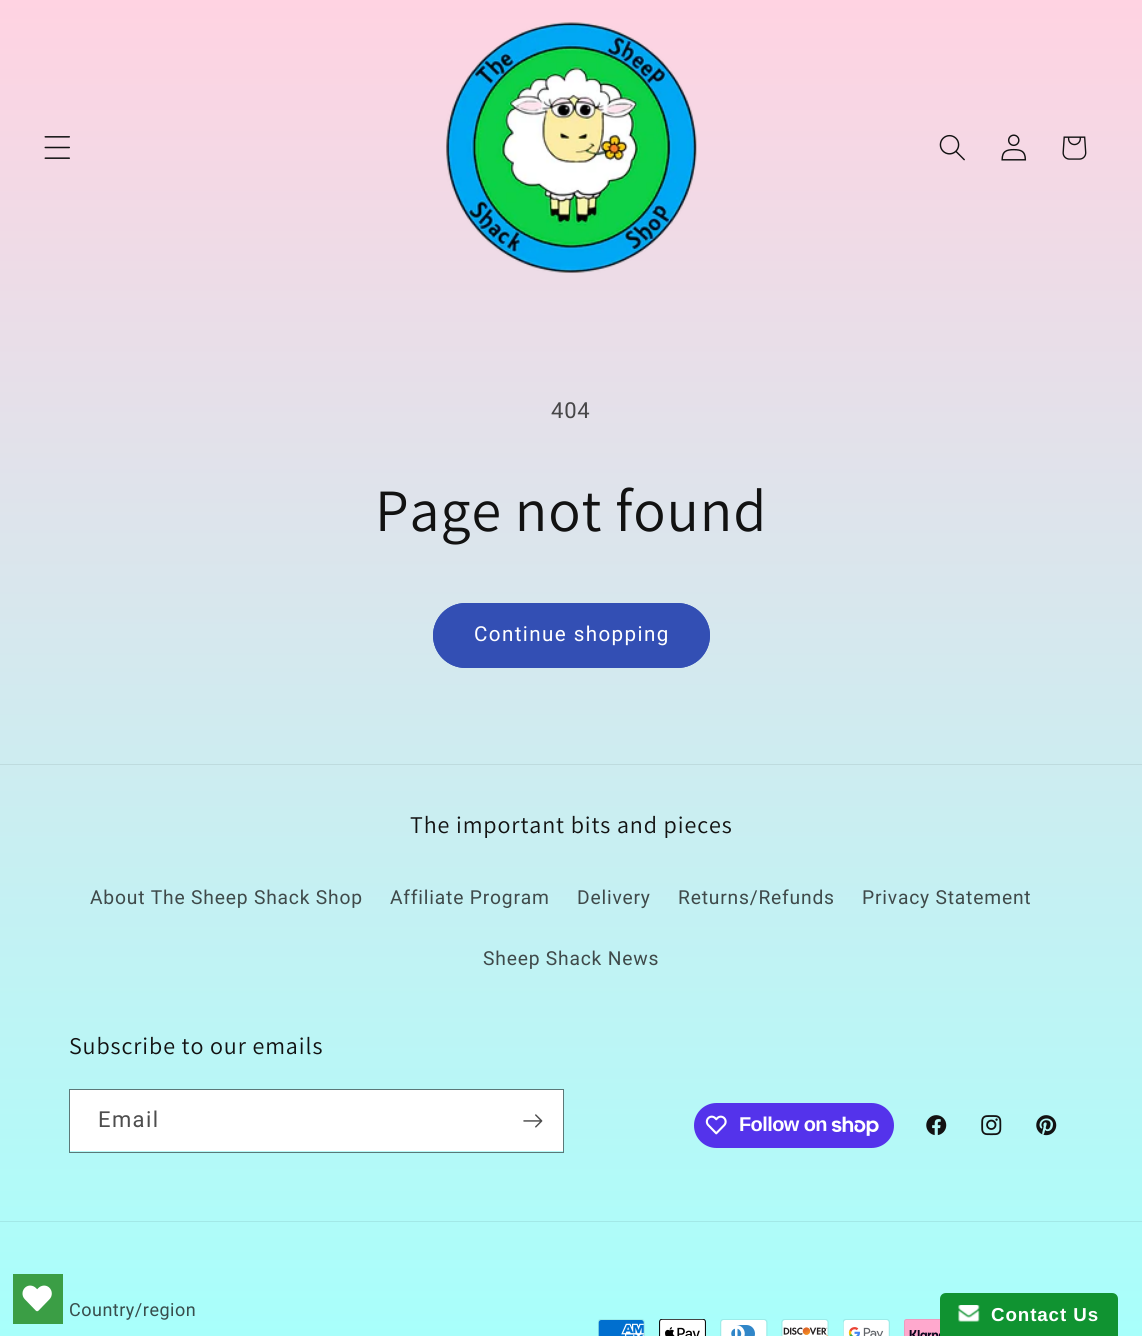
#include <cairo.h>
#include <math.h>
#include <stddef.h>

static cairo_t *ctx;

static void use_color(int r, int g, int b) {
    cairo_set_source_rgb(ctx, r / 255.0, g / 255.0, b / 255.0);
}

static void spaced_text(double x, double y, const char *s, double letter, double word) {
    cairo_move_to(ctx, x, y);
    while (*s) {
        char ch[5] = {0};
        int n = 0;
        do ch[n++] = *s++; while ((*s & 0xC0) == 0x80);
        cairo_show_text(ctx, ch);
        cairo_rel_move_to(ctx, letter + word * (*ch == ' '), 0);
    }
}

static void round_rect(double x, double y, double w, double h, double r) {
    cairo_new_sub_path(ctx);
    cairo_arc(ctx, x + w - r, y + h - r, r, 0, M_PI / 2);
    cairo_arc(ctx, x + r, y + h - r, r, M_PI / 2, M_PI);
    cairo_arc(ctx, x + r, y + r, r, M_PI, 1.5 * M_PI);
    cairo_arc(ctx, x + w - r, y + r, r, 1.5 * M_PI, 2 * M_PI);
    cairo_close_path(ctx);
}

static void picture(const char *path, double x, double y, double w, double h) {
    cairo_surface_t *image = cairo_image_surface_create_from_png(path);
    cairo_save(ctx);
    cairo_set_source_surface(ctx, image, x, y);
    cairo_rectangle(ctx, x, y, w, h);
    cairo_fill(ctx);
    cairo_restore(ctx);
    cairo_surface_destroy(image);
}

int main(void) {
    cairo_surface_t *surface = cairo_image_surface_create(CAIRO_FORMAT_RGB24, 1142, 1336);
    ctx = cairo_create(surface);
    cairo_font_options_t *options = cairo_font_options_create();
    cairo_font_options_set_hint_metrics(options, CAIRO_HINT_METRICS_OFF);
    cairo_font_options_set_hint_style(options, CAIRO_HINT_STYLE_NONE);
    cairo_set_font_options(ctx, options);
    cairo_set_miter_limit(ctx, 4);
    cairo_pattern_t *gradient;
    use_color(255, 255, 255);
    cairo_paint(ctx);
    gradient = cairo_pattern_create_linear(571, 0, 571, 1336);
    cairo_pattern_add_color_stop_rgba(gradient, 0, 1, 0.827, 0.886, 1);
    cairo_pattern_add_color_stop_rgba(gradient, 1, 0.659, 1, 0.984, 1);
    cairo_set_source(ctx, gradient);
    cairo_pattern_destroy(gradient);
    cairo_rectangle(ctx, 0, 0, 1142, 1336);
    cairo_fill(ctx);
    picture("img1.png", 44, 136, 26, 23);
    picture("img2.png", 446, 22, 251, 251);
    picture("img3.png", 939, 134, 26, 27);
    picture("img4.png", 1001, 134, 26, 27);
    picture("img5.png", 1062, 136, 25, 24);
    cairo_select_font_face(ctx, "Roboto", CAIRO_FONT_SLANT_NORMAL, CAIRO_FONT_WEIGHT_NORMAL);
    cairo_set_font_size(ctx, 22);
    use_color(71, 70, 72);
    spaced_text(551, 418, "404", 0.8, 0);
    cairo_select_font_face(ctx, "Assistant", CAIRO_FONT_SLANT_NORMAL, CAIRO_FONT_WEIGHT_NORMAL);
    cairo_set_font_size(ctx, 60);
    use_color(18, 18, 18);
    spaced_text(375, 531, "Page not found", 0.9, 0);
    use_color(51, 79, 180);
    round_rect(433, 603, 277, 65, 32.5);
    cairo_fill(ctx);
    round_rect(433.5, 603.5, 276, 64, 32);
    cairo_set_line_width(ctx, 1);
    cairo_stroke(ctx);
    cairo_select_font_face(ctx, "Roboto", CAIRO_FONT_SLANT_NORMAL, CAIRO_FONT_WEIGHT_NORMAL);
    cairo_set_font_size(ctx, 20.6);
    use_color(255, 255, 255);
    spaced_text(474, 641, "Continue shopping", 1.4, 0);
    use_color(59, 158, 69);
    cairo_rectangle(ctx, 13, 1274, 50, 50);
    cairo_fill(ctx);
    picture("img6.png", 22, 1285, 30, 27);
    use_color(190, 219, 222);
    cairo_rectangle(ctx, 0, 764, 1142, 1);
    cairo_fill(ctx);
    cairo_select_font_face(ctx, "Assistant", CAIRO_FONT_SLANT_NORMAL, CAIRO_FONT_WEIGHT_NORMAL);
    cairo_set_font_size(ctx, 24);
    use_color(18, 18, 18);
    spaced_text(410, 833, "The important bits and pieces", 0.9, 0);
    cairo_select_font_face(ctx, "Roboto", CAIRO_FONT_SLANT_NORMAL, CAIRO_FONT_WEIGHT_NORMAL);
    cairo_set_font_size(ctx, 19.25);
    use_color(63, 74, 74);
    spaced_text(90, 904, "About The Sheep Shack Shop", 0.8, 0);
    spaced_text(390, 904, "Affiliate Program", 0.8, 0);
    spaced_text(577, 904, "Delivery", 0.8, 0);
    spaced_text(678, 904, "Returns/Refunds", 0.8, 0);
    spaced_text(862, 904, "Privacy Statement", 0.8, 0);
    spaced_text(483, 965, "Sheep Shack News", 0.8, 0);
    cairo_select_font_face(ctx, "Assistant", CAIRO_FONT_SLANT_NORMAL, CAIRO_FONT_WEIGHT_NORMAL);
    cairo_set_font_size(ctx, 24);
    use_color(18, 18, 18);
    spaced_text(69, 1054, "Subscribe to our emails", 0.9, 0);
    use_color(255, 255, 255);
    cairo_rectangle(ctx, 70, 1090, 493, 61);
    cairo_fill(ctx);
    cairo_rectangle(ctx, 69.5, 1089.5, 494, 63);
    cairo_set_source_rgba(ctx, 0.071, 0.071, 0.071, 0.55);
    cairo_stroke(ctx);
    cairo_select_font_face(ctx, "Roboto", CAIRO_FONT_SLANT_NORMAL, CAIRO_FONT_WEIGHT_NORMAL);
    cairo_set_font_size(ctx, 22);
    use_color(77, 77, 77);
    spaced_text(98, 1127, "Email", 1.4, 0);
    picture("img7.png", 523, 1114, 20, 14);
    use_color(84, 51, 235);
    round_rect(694, 1103, 200, 45, 22.5);
    cairo_fill(ctx);
    picture("img8.png", 705, 1115, 22, 20);
    cairo_select_font_face(ctx, "Liberation Sans", CAIRO_FONT_SLANT_NORMAL, CAIRO_FONT_WEIGHT_BOLD);
    cairo_set_font_size(ctx, 20);
    use_color(255, 255, 255);
    spaced_text(739, 1131, "Follow on", -0.6, 0);
    picture("img9.png", 831, 1116, 48, 20);
    picture("img10.png", 926, 1115, 21, 21);
    picture("img11.png", 981, 1115, 21, 21);
    picture("img12.png", 1036, 1115, 21, 21);
    use_color(162, 232, 231);
    cairo_rectangle(ctx, 0, 1221, 1142, 1);
    cairo_fill(ctx);
    cairo_select_font_face(ctx, "Roboto", CAIRO_FONT_SLANT_NORMAL, CAIRO_FONT_WEIGHT_NORMAL);
    cairo_set_font_size(ctx, 18);
    use_color(56, 77, 76);
    spaced_text(69, 1316, "Country/region", 0.5, 0);
    picture("img13.png", 598, 1319, 47, 17);
    picture("img14.png", 659, 1319, 47, 17);
    picture("img15.png", 720, 1319, 48, 17);
    picture("img16.png", 781, 1319, 48, 17);
    picture("img17.png", 843, 1319, 47, 17);
    picture("img18.png", 904, 1319, 36, 17);
    use_color(16, 147, 49);
    cairo_new_path(ctx);
    cairo_move_to(ctx, 946, 1293);
    cairo_line_to(ctx, 1112, 1293);
    cairo_curve_to(ctx, 1115.5, 1293, 1118, 1295.5, 1118, 1299);
    cairo_line_to(ctx, 1118, 1336);
    cairo_line_to(ctx, 940, 1336);
    cairo_line_to(ctx, 940, 1299);
    cairo_curve_to(ctx, 940, 1295.5, 942.5, 1293, 946, 1293);
    cairo_close_path(ctx);
    cairo_fill(ctx);
    picture("img19.png", 958, 1305, 22, 17);
    cairo_select_font_face(ctx, "Liberation Sans", CAIRO_FONT_SLANT_NORMAL, CAIRO_FONT_WEIGHT_BOLD);
    cairo_set_font_size(ctx, 18.75);
    use_color(255, 255, 255);
    spaced_text(991, 1321, "Contact Us", 0.9, 0);
    cairo_surface_write_to_png(surface, "result.png");
    cairo_font_options_destroy(options);
    cairo_destroy(ctx);
    cairo_surface_destroy(surface);
    return 0;
}
